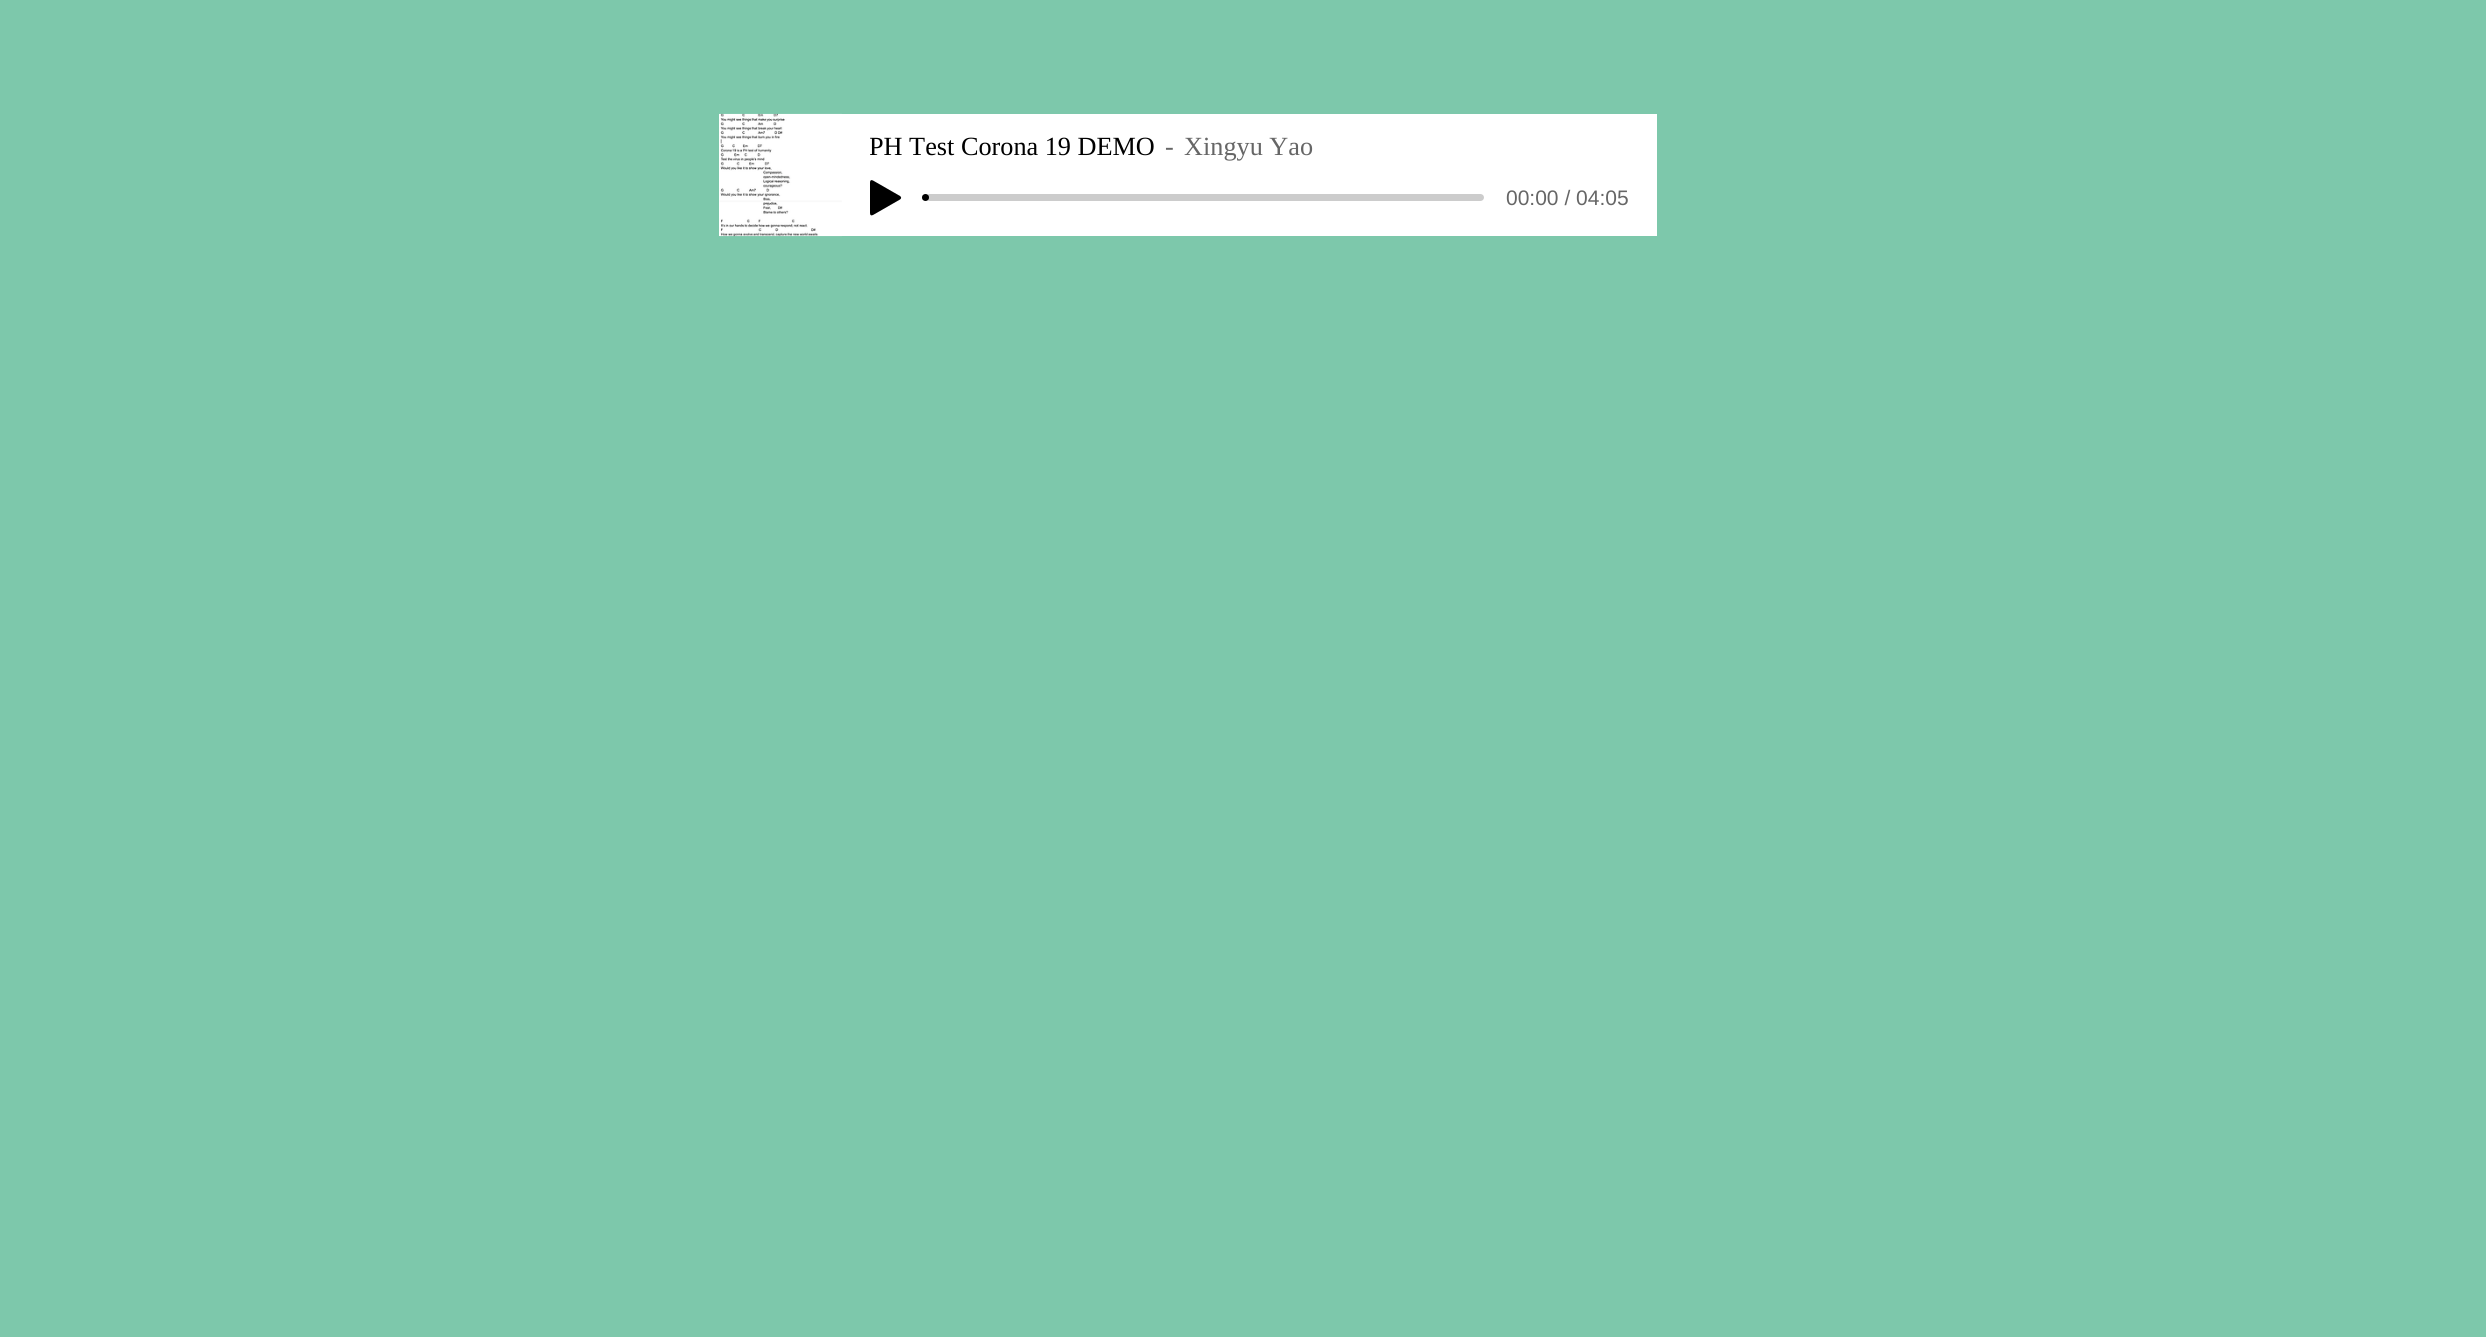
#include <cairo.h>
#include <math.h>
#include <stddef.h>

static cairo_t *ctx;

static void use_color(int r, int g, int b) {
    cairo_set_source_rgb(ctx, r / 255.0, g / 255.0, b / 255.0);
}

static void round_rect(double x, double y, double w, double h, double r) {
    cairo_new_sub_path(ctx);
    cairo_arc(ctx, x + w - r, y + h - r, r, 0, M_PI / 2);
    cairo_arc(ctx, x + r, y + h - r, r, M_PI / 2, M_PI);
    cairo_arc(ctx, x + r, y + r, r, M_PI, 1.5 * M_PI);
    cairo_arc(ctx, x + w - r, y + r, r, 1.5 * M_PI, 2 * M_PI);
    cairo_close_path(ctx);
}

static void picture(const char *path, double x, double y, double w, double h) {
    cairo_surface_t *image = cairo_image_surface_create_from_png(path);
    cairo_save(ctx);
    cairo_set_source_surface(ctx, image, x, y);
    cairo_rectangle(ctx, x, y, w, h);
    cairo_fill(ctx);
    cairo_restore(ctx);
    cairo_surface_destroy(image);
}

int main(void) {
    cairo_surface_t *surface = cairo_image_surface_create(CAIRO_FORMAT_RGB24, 2486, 1337);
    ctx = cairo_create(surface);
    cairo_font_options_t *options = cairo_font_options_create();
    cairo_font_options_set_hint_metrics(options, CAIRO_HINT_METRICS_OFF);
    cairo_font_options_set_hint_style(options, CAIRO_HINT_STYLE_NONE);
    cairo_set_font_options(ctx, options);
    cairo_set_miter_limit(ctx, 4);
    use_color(125, 200, 171);
    cairo_paint(ctx);
    use_color(255, 255, 255);
    cairo_rectangle(ctx, 719, 114, 938, 122);
    cairo_fill(ctx);
    picture("img1.png", 719, 113, 123, 124);
    cairo_save(ctx);
    cairo_rectangle(ctx, 870, 135, 285, 26);
    cairo_clip(ctx);
    cairo_select_font_face(ctx, "Liberation Serif", CAIRO_FONT_SLANT_NORMAL, CAIRO_FONT_WEIGHT_NORMAL);
    cairo_set_font_size(ctx, 26.25);
    use_color(0, 0, 0);
    cairo_move_to(ctx, 869, 155);
    cairo_show_text(ctx, "PH Test Corona 19 DEMO");
    cairo_restore(ctx);
    cairo_select_font_face(ctx, "Liberation Serif", CAIRO_FONT_SLANT_NORMAL, CAIRO_FONT_WEIGHT_NORMAL);
    cairo_set_font_size(ctx, 26.25);
    use_color(102, 102, 102);
    cairo_move_to(ctx, 1165, 155);
    cairo_show_text(ctx, "-");
    cairo_move_to(ctx, 1184, 155);
    cairo_show_text(ctx, "Xingyu Yao");
    use_color(0, 0, 0);
    cairo_new_path(ctx);
    cairo_move_to(ctx, 900, 196);
    cairo_curve_to(ctx, 901.5, 197, 901.5, 198.5, 900, 199.5);
    cairo_line_to(ctx, 873, 215);
    cairo_curve_to(ctx, 871, 216, 870, 215, 870, 213);
    cairo_line_to(ctx, 870, 182.5);
    cairo_curve_to(ctx, 870, 180.5, 871, 179.5, 873, 180.5);
    cairo_close_path(ctx);
    cairo_fill(ctx);
    use_color(204, 204, 204);
    round_rect(926, 194, 558, 7, 3.5);
    cairo_fill(ctx);
    use_color(0, 0, 0);
    cairo_arc(ctx, 925.5, 197.5, 3.5, 0, 2 * M_PI);
    cairo_fill(ctx);
    cairo_select_font_face(ctx, "Liberation Sans", CAIRO_FONT_SLANT_NORMAL, CAIRO_FONT_WEIGHT_NORMAL);
    cairo_set_font_size(ctx, 21);
    use_color(102, 102, 102);
    cairo_move_to(ctx, 1506, 205);
    cairo_show_text(ctx, "00:00 / 04:05");
    cairo_surface_write_to_png(surface, "result.png");
    cairo_font_options_destroy(options);
    cairo_destroy(ctx);
    cairo_surface_destroy(surface);
    return 0;
}
